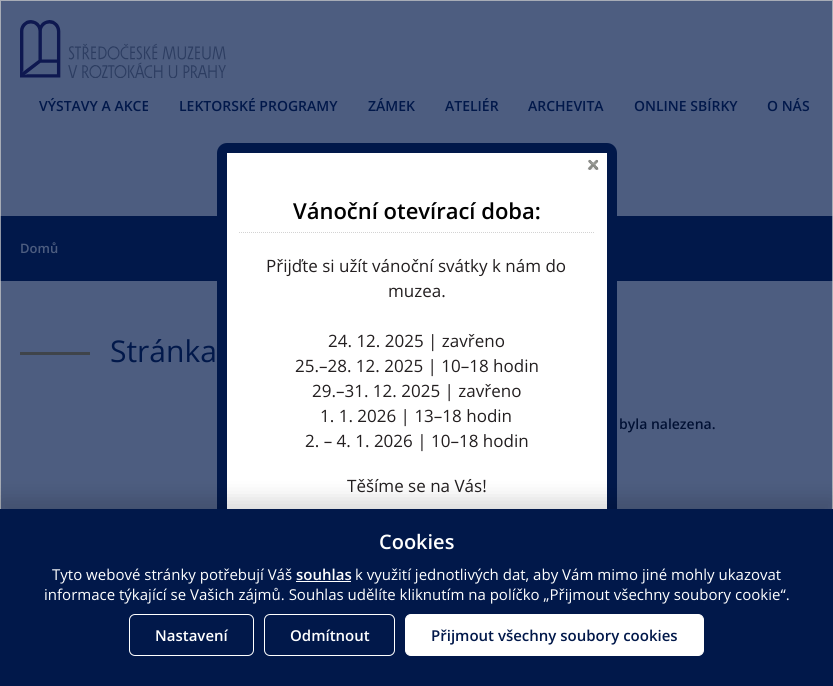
#include <cairo.h>
#include <math.h>
#include <stddef.h>

static cairo_t *ctx;

static void use_color(int r, int g, int b) {
    cairo_set_source_rgb(ctx, r / 255.0, g / 255.0, b / 255.0);
}

static void round_rect(double x, double y, double w, double h, double r) {
    cairo_new_sub_path(ctx);
    cairo_arc(ctx, x + w - r, y + h - r, r, 0, M_PI / 2);
    cairo_arc(ctx, x + r, y + h - r, r, M_PI / 2, M_PI);
    cairo_arc(ctx, x + r, y + r, r, M_PI, 1.5 * M_PI);
    cairo_arc(ctx, x + w - r, y + r, r, 1.5 * M_PI, 2 * M_PI);
    cairo_close_path(ctx);
}

static void shadow(double x, double y, double w, double h, double r, double blur, double alpha) {
    cairo_push_group_with_content(ctx, CAIRO_CONTENT_ALPHA);
    cairo_set_operator(ctx, CAIRO_OPERATOR_SOURCE);
    for (int i = 15; i >= -15 && fmin(w, h) + blur * i / 3 > 0; i -= 2) {
        double e = blur * i / 6;
        cairo_set_source_rgba(ctx, 0, 0, 0, alpha * erfc((i - 1) / 8.5) / 2);
        round_rect(x - e, y - e, w + 2 * e, h + 2 * e, fmax(0, fmin(r + e + blur * .6, fmin(w, h) / 2 + e)));
        cairo_fill(ctx);
    }
    cairo_pattern_t *soft = cairo_pop_group(ctx);
    cairo_mask(ctx, soft);
    cairo_pattern_destroy(soft);
}

static void picture(const char *path, double x, double y, double w, double h) {
    cairo_surface_t *image = cairo_image_surface_create_from_png(path);
    cairo_save(ctx);
    cairo_set_source_surface(ctx, image, x, y);
    cairo_rectangle(ctx, x, y, w, h);
    cairo_fill(ctx);
    cairo_restore(ctx);
    cairo_surface_destroy(image);
}

int main(void) {
    cairo_surface_t *surface = cairo_image_surface_create(CAIRO_FORMAT_RGB24, 833, 686);
    ctx = cairo_create(surface);
    cairo_font_options_t *options = cairo_font_options_create();
    cairo_font_options_set_hint_metrics(options, CAIRO_HINT_METRICS_OFF);
    cairo_font_options_set_hint_style(options, CAIRO_HINT_STYLE_NONE);
    cairo_set_font_options(ctx, options);
    cairo_set_miter_limit(ctx, 4);
    use_color(77, 93, 128);
    cairo_paint(ctx);
    picture("img1.png", 20, 20, 206, 58);
    use_color(1, 24, 74);
    cairo_rectangle(ctx, 0, 216, 833, 65);
    cairo_fill(ctx);
    use_color(63, 68, 74);
    cairo_rectangle(ctx, 20, 352, 70, 3);
    cairo_fill(ctx);
    cairo_rectangle(ctx, 0.5, 0.5, 832, 685);
    cairo_set_source_rgba(ctx, 0.808, 0.808, 0.808, 0.7);
    cairo_set_line_width(ctx, 1);
    cairo_stroke(ctx);
    cairo_select_font_face(ctx, "Open Sans SemiBold", CAIRO_FONT_SLANT_NORMAL, CAIRO_FONT_WEIGHT_NORMAL);
    cairo_set_font_size(ctx, 14);
    use_color(1, 24, 74);
    cairo_move_to(ctx, 39, 111);
    cairo_show_text(ctx, "VÝSTAVY A AKCE");
    cairo_move_to(ctx, 179, 111);
    cairo_show_text(ctx, "LEKTORSKÉ PROGRAMY");
    cairo_move_to(ctx, 368, 111);
    cairo_show_text(ctx, "ZÁMEK");
    cairo_move_to(ctx, 445, 111);
    cairo_show_text(ctx, "ATELIÉR");
    cairo_move_to(ctx, 528, 111);
    cairo_show_text(ctx, "ARCHEVITA");
    cairo_move_to(ctx, 634, 111);
    cairo_show_text(ctx, "ONLINE SBÍRKY");
    cairo_move_to(ctx, 767, 111);
    cairo_show_text(ctx, "O NÁS");
    cairo_set_font_size(ctx, 13);
    use_color(77, 93, 128);
    cairo_move_to(ctx, 20, 253);
    cairo_show_text(ctx, "Domů");
    cairo_select_font_face(ctx, "Open Sans", CAIRO_FONT_SLANT_NORMAL, CAIRO_FONT_WEIGHT_NORMAL);
    cairo_set_font_size(ctx, 30);
    use_color(1, 24, 74);
    cairo_move_to(ctx, 110, 362);
    cairo_show_text(ctx, "Stránka");
    cairo_select_font_face(ctx, "Open Sans SemiBold", CAIRO_FONT_SLANT_NORMAL, CAIRO_FONT_WEIGHT_NORMAL);
    cairo_set_font_size(ctx, 14);
    use_color(1, 17, 52);
    cairo_move_to(ctx, 619, 429);
    cairo_show_text(ctx, "byla nalezena.");
    use_color(255, 255, 255);
    round_rect(222, 148, 390, 390, 5);
    cairo_fill_preserve(ctx);
    use_color(1, 24, 74);
    cairo_set_line_width(ctx, 10);
    cairo_stroke(ctx);
    picture("img2.png", 587, 159, 12, 11);
    cairo_new_path(ctx);
    cairo_move_to(ctx, 239, 232.5);
    cairo_line_to(ctx, 595, 232.5);
    use_color(211, 211, 211);
    cairo_set_line_width(ctx, 1);
    cairo_set_dash(ctx, (double[]){1, 1}, 2, 0);
    cairo_stroke(ctx);
    cairo_set_font_size(ctx, 22);
    use_color(0, 0, 0);
    cairo_move_to(ctx, 293, 219);
    cairo_show_text(ctx, "Vánoční otevírací doba:");
    cairo_select_font_face(ctx, "Open Sans", CAIRO_FONT_SLANT_NORMAL, CAIRO_FONT_WEIGHT_NORMAL);
    cairo_set_font_size(ctx, 17);
    use_color(35, 31, 32);
    cairo_move_to(ctx, 266, 272);
    cairo_show_text(ctx, "Přijďte si užít vánoční svátky k nám do");
    cairo_move_to(ctx, 388, 297);
    cairo_show_text(ctx, "muzea.");
    cairo_move_to(ctx, 328, 347);
    cairo_show_text(ctx, "24. 12. 2025 | zavřeno");
    cairo_move_to(ctx, 295, 372);
    cairo_show_text(ctx, "25.–28. 12. 2025 | 10–18 hodin");
    cairo_move_to(ctx, 312, 397);
    cairo_show_text(ctx, "29.–31. 12. 2025 | zavřeno");
    cairo_move_to(ctx, 320, 422);
    cairo_show_text(ctx, "1. 1. 2026 | 13–18 hodin");
    cairo_move_to(ctx, 305, 447);
    cairo_show_text(ctx, "2. – 4. 1. 2026 | 10–18 hodin");
    cairo_move_to(ctx, 347, 492);
    cairo_show_text(ctx, "Těšíme se na Vás!");
    use_color(0, 0, 0);
    shadow(0, 499, 833, 177, 0, 10, 0.15);
    use_color(1, 24, 74);
    cairo_rectangle(ctx, 0, 509, 833, 177);
    cairo_fill(ctx);
    cairo_select_font_face(ctx, "Open Sans SemiBold", CAIRO_FONT_SLANT_NORMAL, CAIRO_FONT_WEIGHT_NORMAL);
    cairo_set_font_size(ctx, 20);
    use_color(255, 255, 255);
    cairo_move_to(ctx, 379, 549);
    cairo_show_text(ctx, "Cookies");
    cairo_select_font_face(ctx, "Open Sans", CAIRO_FONT_SLANT_NORMAL, CAIRO_FONT_WEIGHT_NORMAL);
    cairo_set_font_size(ctx, 15);
    cairo_move_to(ctx, 52, 580);
    cairo_show_text(ctx, "Tyto webové stránky potřebují Váš");
    cairo_select_font_face(ctx, "Open Sans SemiBold", CAIRO_FONT_SLANT_NORMAL, CAIRO_FONT_WEIGHT_NORMAL);
    cairo_move_to(ctx, 296, 580);
    cairo_show_text(ctx, "souhlas");
    cairo_rectangle(ctx, 296, 581, 55, 1);
    cairo_fill(ctx);
    cairo_select_font_face(ctx, "Open Sans", CAIRO_FONT_SLANT_NORMAL, CAIRO_FONT_WEIGHT_NORMAL);
    cairo_move_to(ctx, 355, 580);
    cairo_show_text(ctx, "k využití jednotlivých dat, aby Vám mimo jiné mohly ukazovat");
    cairo_move_to(ctx, 44, 600);
    cairo_show_text(ctx, "informace týkající se Vašich zájmů. Souhlas udělíte kliknutím na políčko „Přijmout všechny soubory cookie“.");
    round_rect(129.5, 614.5, 124, 41, 5.5);
    cairo_set_dash(ctx, NULL, 0, 0);
    cairo_stroke(ctx);
    cairo_select_font_face(ctx, "Open Sans SemiBold", CAIRO_FONT_SLANT_NORMAL, CAIRO_FONT_WEIGHT_NORMAL);
    cairo_move_to(ctx, 155, 641);
    cairo_show_text(ctx, "Nastavení");
    round_rect(264.5, 614.5, 130, 41, 5.5);
    cairo_stroke(ctx);
    cairo_move_to(ctx, 290, 641);
    cairo_show_text(ctx, "Odmítnout");
    round_rect(405.5, 614.5, 298, 41, 5.5);
    cairo_fill_preserve(ctx);
    cairo_stroke(ctx);
    use_color(1, 24, 74);
    cairo_move_to(ctx, 431, 641);
    cairo_show_text(ctx, "Přijmout všechny soubory cookies");
    cairo_surface_write_to_png(surface, "result.png");
    cairo_font_options_destroy(options);
    cairo_destroy(ctx);
    cairo_surface_destroy(surface);
    return 0;
}
